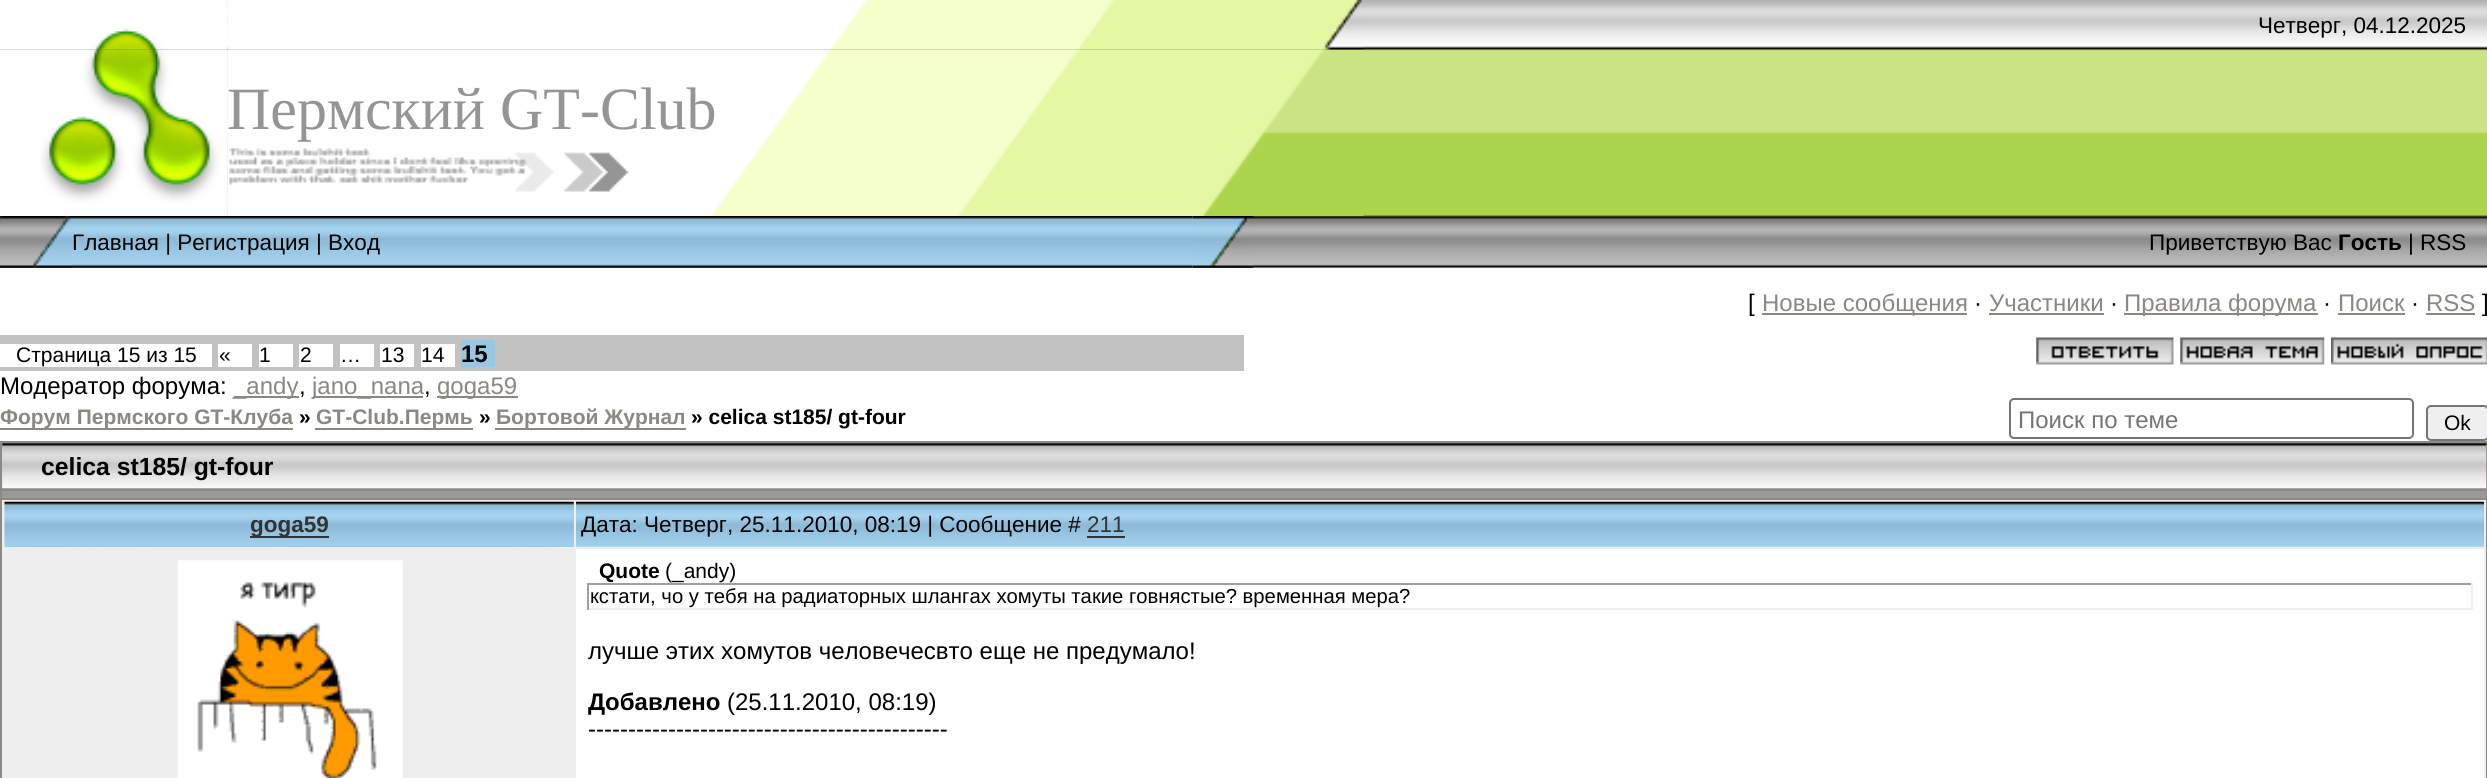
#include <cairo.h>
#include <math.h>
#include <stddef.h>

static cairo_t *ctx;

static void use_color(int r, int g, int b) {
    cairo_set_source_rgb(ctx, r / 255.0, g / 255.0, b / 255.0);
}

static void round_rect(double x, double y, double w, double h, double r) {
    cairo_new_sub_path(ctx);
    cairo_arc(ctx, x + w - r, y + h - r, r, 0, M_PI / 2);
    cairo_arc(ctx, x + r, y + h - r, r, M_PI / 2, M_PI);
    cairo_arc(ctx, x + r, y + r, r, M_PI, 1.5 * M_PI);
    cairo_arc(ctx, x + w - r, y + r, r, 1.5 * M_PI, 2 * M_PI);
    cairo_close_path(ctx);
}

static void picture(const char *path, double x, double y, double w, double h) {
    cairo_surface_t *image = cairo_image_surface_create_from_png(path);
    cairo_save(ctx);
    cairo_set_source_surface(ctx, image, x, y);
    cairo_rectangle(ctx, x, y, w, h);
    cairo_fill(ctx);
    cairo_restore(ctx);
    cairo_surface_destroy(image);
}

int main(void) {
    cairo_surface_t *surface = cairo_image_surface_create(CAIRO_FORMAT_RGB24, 2487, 778);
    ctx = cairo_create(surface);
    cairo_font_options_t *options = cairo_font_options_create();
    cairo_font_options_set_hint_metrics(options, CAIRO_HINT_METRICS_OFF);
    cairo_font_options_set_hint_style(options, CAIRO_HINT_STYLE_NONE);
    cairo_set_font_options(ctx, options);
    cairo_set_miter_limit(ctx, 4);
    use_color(255, 255, 255);
    cairo_paint(ctx);
    picture("img1.png", 0, 0, 2487, 268);
    picture("img5.png", 227, 49, 1137, 167);
    picture("img2.png", 0, 0, 228, 50);
    picture("img3.png", 227, 0, 1137, 50);
    cairo_select_font_face(ctx, "Liberation Sans", CAIRO_FONT_SLANT_NORMAL, CAIRO_FONT_WEIGHT_NORMAL);
    cairo_set_font_size(ctx, 22.5);
    use_color(0, 0, 0);
    cairo_move_to(ctx, 2258, 33);
    cairo_show_text(ctx, "Четверг, 04.12.2025");
    picture("img4.png", 0, 49, 228, 167);
    cairo_select_font_face(ctx, "Liberation Serif", CAIRO_FONT_SLANT_NORMAL, CAIRO_FONT_WEIGHT_NORMAL);
    cairo_set_font_size(ctx, 60);
    use_color(150, 149, 149);
    cairo_move_to(ctx, 227, 129);
    cairo_show_text(ctx, "Пермский GT-Club");
    picture("img6.png", 0, 216, 72, 52);
    use_color(153, 198, 226);
    cairo_rectangle(ctx, 72, 216, 1121, 52);
    cairo_fill(ctx);
    picture("img7.png", 72, 216, 1121, 52);
    cairo_select_font_face(ctx, "Liberation Sans", CAIRO_FONT_SLANT_NORMAL, CAIRO_FONT_WEIGHT_NORMAL);
    cairo_set_font_size(ctx, 22.5);
    use_color(0, 0, 0);
    cairo_move_to(ctx, 72, 250);
    cairo_show_text(ctx, "Главная | Регистрация | Вход");
    picture("img8.png", 1192, 216, 62, 52);
    cairo_move_to(ctx, 2149, 250);
    cairo_show_text(ctx, "Приветствую Вас");
    cairo_select_font_face(ctx, "Liberation Sans", CAIRO_FONT_SLANT_NORMAL, CAIRO_FONT_WEIGHT_BOLD);
    cairo_move_to(ctx, 2338, 250);
    cairo_show_text(ctx, "Гость");
    cairo_select_font_face(ctx, "Liberation Sans", CAIRO_FONT_SLANT_NORMAL, CAIRO_FONT_WEIGHT_NORMAL);
    cairo_move_to(ctx, 2408, 250);
    cairo_show_text(ctx, "| RSS");
    cairo_set_font_size(ctx, 24);
    cairo_move_to(ctx, 1748, 311);
    cairo_show_text(ctx, "[");
    use_color(139, 136, 129);
    cairo_rectangle(ctx, 1762, 313, 205, 2);
    cairo_fill(ctx);
    cairo_move_to(ctx, 1762, 311);
    cairo_show_text(ctx, "Новые сообщения");
    use_color(0, 0, 0);
    cairo_move_to(ctx, 1974, 311);
    cairo_show_text(ctx, "·");
    use_color(139, 136, 129);
    cairo_move_to(ctx, 1989, 311);
    cairo_show_text(ctx, "Участники");
    cairo_rectangle(ctx, 1989, 313, 115, 2);
    cairo_fill(ctx);
    use_color(0, 0, 0);
    cairo_move_to(ctx, 2110, 311);
    cairo_show_text(ctx, "·");
    use_color(139, 136, 129);
    cairo_rectangle(ctx, 2124, 313, 194, 2);
    cairo_fill(ctx);
    cairo_move_to(ctx, 2124, 311);
    cairo_show_text(ctx, "Правила форума");
    use_color(0, 0, 0);
    cairo_move_to(ctx, 2323, 311);
    cairo_show_text(ctx, "·");
    use_color(139, 136, 129);
    cairo_move_to(ctx, 2338, 311);
    cairo_show_text(ctx, "Поиск");
    cairo_rectangle(ctx, 2338, 313, 67, 2);
    cairo_fill(ctx);
    use_color(0, 0, 0);
    cairo_move_to(ctx, 2411, 311);
    cairo_show_text(ctx, "·");
    use_color(139, 136, 129);
    cairo_move_to(ctx, 2426, 311);
    cairo_show_text(ctx, "RSS");
    cairo_rectangle(ctx, 2426, 313, 49, 2);
    cairo_fill(ctx);
    use_color(0, 0, 0);
    cairo_move_to(ctx, 2482, 311);
    cairo_show_text(ctx, "]");
    use_color(194, 194, 194);
    cairo_rectangle(ctx, 0, 335, 1244, 36);
    cairo_fill(ctx);
    use_color(255, 255, 255);
    cairo_rectangle(ctx, 0, 344, 212, 23);
    cairo_fill(ctx);
    cairo_set_font_size(ctx, 21);
    use_color(0, 0, 0);
    cairo_move_to(ctx, 16, 362);
    cairo_show_text(ctx, "Страница 15 из 15");
    use_color(255, 255, 255);
    cairo_rectangle(ctx, 218, 344, 34, 23);
    cairo_fill(ctx);
    use_color(0, 0, 0);
    cairo_move_to(ctx, 219, 362);
    cairo_show_text(ctx, "«");
    use_color(255, 255, 255);
    cairo_rectangle(ctx, 259, 344, 34, 23);
    cairo_fill(ctx);
    use_color(0, 0, 0);
    cairo_move_to(ctx, 259, 362);
    cairo_show_text(ctx, "1");
    use_color(255, 255, 255);
    cairo_rectangle(ctx, 299, 344, 34, 23);
    cairo_fill(ctx);
    use_color(0, 0, 0);
    cairo_move_to(ctx, 300, 362);
    cairo_show_text(ctx, "2");
    use_color(255, 255, 255);
    cairo_rectangle(ctx, 340, 344, 34, 23);
    cairo_fill(ctx);
    use_color(0, 0, 0);
    cairo_move_to(ctx, 340, 362);
    cairo_show_text(ctx, "…");
    use_color(255, 255, 255);
    cairo_rectangle(ctx, 380, 344, 34, 23);
    cairo_fill(ctx);
    use_color(0, 0, 0);
    cairo_move_to(ctx, 381, 362);
    cairo_show_text(ctx, "13");
    use_color(255, 255, 255);
    cairo_rectangle(ctx, 421, 344, 34, 23);
    cairo_fill(ctx);
    use_color(0, 0, 0);
    cairo_move_to(ctx, 421, 362);
    cairo_show_text(ctx, "14");
    use_color(153, 198, 226);
    cairo_rectangle(ctx, 461, 340, 34, 27);
    cairo_fill(ctx);
    cairo_select_font_face(ctx, "Liberation Sans", CAIRO_FONT_SLANT_NORMAL, CAIRO_FONT_WEIGHT_BOLD);
    cairo_set_font_size(ctx, 24);
    use_color(0, 0, 0);
    cairo_move_to(ctx, 461, 362);
    cairo_show_text(ctx, "15");
    picture("img9.png", 2036, 337, 138, 28);
    picture("img10.png", 2180, 337, 145, 28);
    picture("img11.png", 2331, 337, 156, 28);
    cairo_select_font_face(ctx, "Liberation Sans", CAIRO_FONT_SLANT_NORMAL, CAIRO_FONT_WEIGHT_NORMAL);
    cairo_move_to(ctx, 0, 394);
    cairo_show_text(ctx, "Модератор форума:");
    use_color(139, 136, 129);
    cairo_rectangle(ctx, 234, 396, 65, 2);
    cairo_fill(ctx);
    cairo_move_to(ctx, 233, 394);
    cairo_show_text(ctx, "_andy");
    use_color(0, 0, 0);
    cairo_move_to(ctx, 299, 394);
    cairo_show_text(ctx, ",");
    use_color(139, 136, 129);
    cairo_rectangle(ctx, 313, 396, 110, 2);
    cairo_fill(ctx);
    cairo_move_to(ctx, 312, 394);
    cairo_show_text(ctx, "jano_nana");
    use_color(0, 0, 0);
    cairo_move_to(ctx, 424, 394);
    cairo_show_text(ctx, ",");
    use_color(139, 136, 129);
    cairo_rectangle(ctx, 437, 396, 81, 2);
    cairo_fill(ctx);
    cairo_move_to(ctx, 437, 394);
    cairo_show_text(ctx, "goga59");
    cairo_rectangle(ctx, 0, 428, 293, 2);
    cairo_fill(ctx);
    cairo_select_font_face(ctx, "Liberation Sans", CAIRO_FONT_SLANT_NORMAL, CAIRO_FONT_WEIGHT_BOLD);
    cairo_set_font_size(ctx, 21);
    cairo_move_to(ctx, 0, 424);
    cairo_show_text(ctx, "Форум Пермского GT-Клуба");
    use_color(0, 0, 0);
    cairo_move_to(ctx, 299, 424);
    cairo_show_text(ctx, "»");
    use_color(139, 136, 129);
    cairo_rectangle(ctx, 315, 428, 158, 2);
    cairo_fill(ctx);
    cairo_move_to(ctx, 316, 424);
    cairo_show_text(ctx, "GT-Club.Пермь");
    use_color(0, 0, 0);
    cairo_move_to(ctx, 479, 424);
    cairo_show_text(ctx, "»");
    use_color(139, 136, 129);
    cairo_rectangle(ctx, 495, 428, 191, 2);
    cairo_fill(ctx);
    cairo_move_to(ctx, 496, 424);
    cairo_show_text(ctx, "Бортовой Журнал");
    use_color(0, 0, 0);
    cairo_move_to(ctx, 691, 424);
    cairo_show_text(ctx, "» celica st185/ gt-four");
    round_rect(2010, 399, 403, 39, 4);
    use_color(118, 118, 118);
    cairo_stroke(ctx);
    cairo_select_font_face(ctx, "Liberation Sans", CAIRO_FONT_SLANT_NORMAL, CAIRO_FONT_WEIGHT_NORMAL);
    cairo_set_font_size(ctx, 24);
    use_color(117, 117, 117);
    cairo_move_to(ctx, 2018, 428);
    cairo_show_text(ctx, "Поиск по теме");
    use_color(239, 239, 239);
    round_rect(2427, 406, 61, 34, 4);
    cairo_fill_preserve(ctx);
    use_color(118, 118, 118);
    cairo_stroke(ctx);
    cairo_set_font_size(ctx, 21);
    use_color(0, 0, 0);
    cairo_move_to(ctx, 2444, 430);
    cairo_show_text(ctx, "Ok");
    use_color(140, 138, 130);
    cairo_rectangle(ctx, 0, 441, 2487, 337);
    cairo_fill(ctx);
    use_color(204, 204, 204);
    cairo_rectangle(ctx, 2, 443, 2484, 45);
    cairo_fill(ctx);
    picture("img12.png", 2, 443, 2485, 46);
    cairo_select_font_face(ctx, "Liberation Sans", CAIRO_FONT_SLANT_NORMAL, CAIRO_FONT_WEIGHT_BOLD);
    cairo_set_font_size(ctx, 24.75);
    use_color(0, 0, 0);
    cairo_move_to(ctx, 41, 475);
    cairo_show_text(ctx, "celica st185/ gt-four");
    use_color(153, 153, 153);
    cairo_rectangle(ctx, 2, 491, 2484, 7);
    cairo_fill(ctx);
    use_color(238, 238, 238);
    cairo_rectangle(ctx, 2, 500, 2484, 278);
    cairo_fill(ctx);
    use_color(153, 198, 226);
    cairo_rectangle(ctx, 5, 502, 569, 45);
    cairo_fill(ctx);
    picture("img13.png", 4, 501, 570, 46);
    use_color(51, 51, 51);
    cairo_rectangle(ctx, 250, 536, 79, 2);
    cairo_fill(ctx);
    cairo_set_font_size(ctx, 22.5);
    cairo_move_to(ctx, 250, 532);
    cairo_show_text(ctx, "goga59");
    picture("img14.png", 576, 501, 1908, 46);
    cairo_select_font_face(ctx, "Liberation Sans", CAIRO_FONT_SLANT_NORMAL, CAIRO_FONT_WEIGHT_NORMAL);
    use_color(0, 0, 0);
    cairo_move_to(ctx, 581, 532);
    cairo_show_text(ctx, "Дата: Четверг, 25.11.2010, 08:19 | Сообщение #");
    use_color(51, 51, 51);
    cairo_move_to(ctx, 1087, 532);
    cairo_show_text(ctx, "211");
    cairo_rectangle(ctx, 1087, 536, 38, 2);
    cairo_fill(ctx);
    picture("img15.png", 177, 560, 226, 218);
    use_color(255, 255, 255);
    cairo_rectangle(ctx, 576, 549, 1908, 229);
    cairo_fill(ctx);
    cairo_select_font_face(ctx, "Liberation Sans", CAIRO_FONT_SLANT_NORMAL, CAIRO_FONT_WEIGHT_BOLD);
    cairo_set_font_size(ctx, 21);
    use_color(0, 0, 0);
    cairo_move_to(ctx, 599, 578);
    cairo_show_text(ctx, "Quote");
    cairo_select_font_face(ctx, "Liberation Sans", CAIRO_FONT_SLANT_NORMAL, CAIRO_FONT_WEIGHT_NORMAL);
    cairo_move_to(ctx, 665, 578);
    cairo_show_text(ctx, "(_andy)");
    use_color(159, 159, 159);
    cairo_rectangle(ctx, 587, 583, 1886, 2);
    cairo_fill(ctx);
    use_color(238, 238, 238);
    cairo_rectangle(ctx, 2471, 583, 2, 27);
    cairo_fill(ctx);
    cairo_rectangle(ctx, 587, 608, 1886, 2);
    cairo_fill(ctx);
    use_color(159, 159, 159);
    cairo_rectangle(ctx, 587, 583, 2, 27);
    cairo_fill(ctx);
    cairo_set_font_size(ctx, 20.25);
    use_color(0, 0, 0);
    cairo_move_to(ctx, 590, 603);
    cairo_show_text(ctx, "кстати, чо у тебя на радиаторных шлангах хомуты такие говнястые? временная мера?");
    cairo_set_font_size(ctx, 24);
    cairo_move_to(ctx, 588, 659);
    cairo_show_text(ctx, "лучше этих хомутов человечесвто еще не предумало!");
    cairo_select_font_face(ctx, "Liberation Sans", CAIRO_FONT_SLANT_NORMAL, CAIRO_FONT_WEIGHT_BOLD);
    cairo_move_to(ctx, 588, 710);
    cairo_show_text(ctx, "Добавлено");
    cairo_select_font_face(ctx, "Liberation Sans", CAIRO_FONT_SLANT_NORMAL, CAIRO_FONT_WEIGHT_NORMAL);
    cairo_move_to(ctx, 727, 710);
    cairo_show_text(ctx, "(25.11.2010, 08:19)");
    cairo_move_to(ctx, 588, 737);
    cairo_show_text(ctx, "---------------------------------------------");
    cairo_surface_write_to_png(surface, "result.png");
    cairo_font_options_destroy(options);
    cairo_destroy(ctx);
    cairo_surface_destroy(surface);
    return 0;
}
